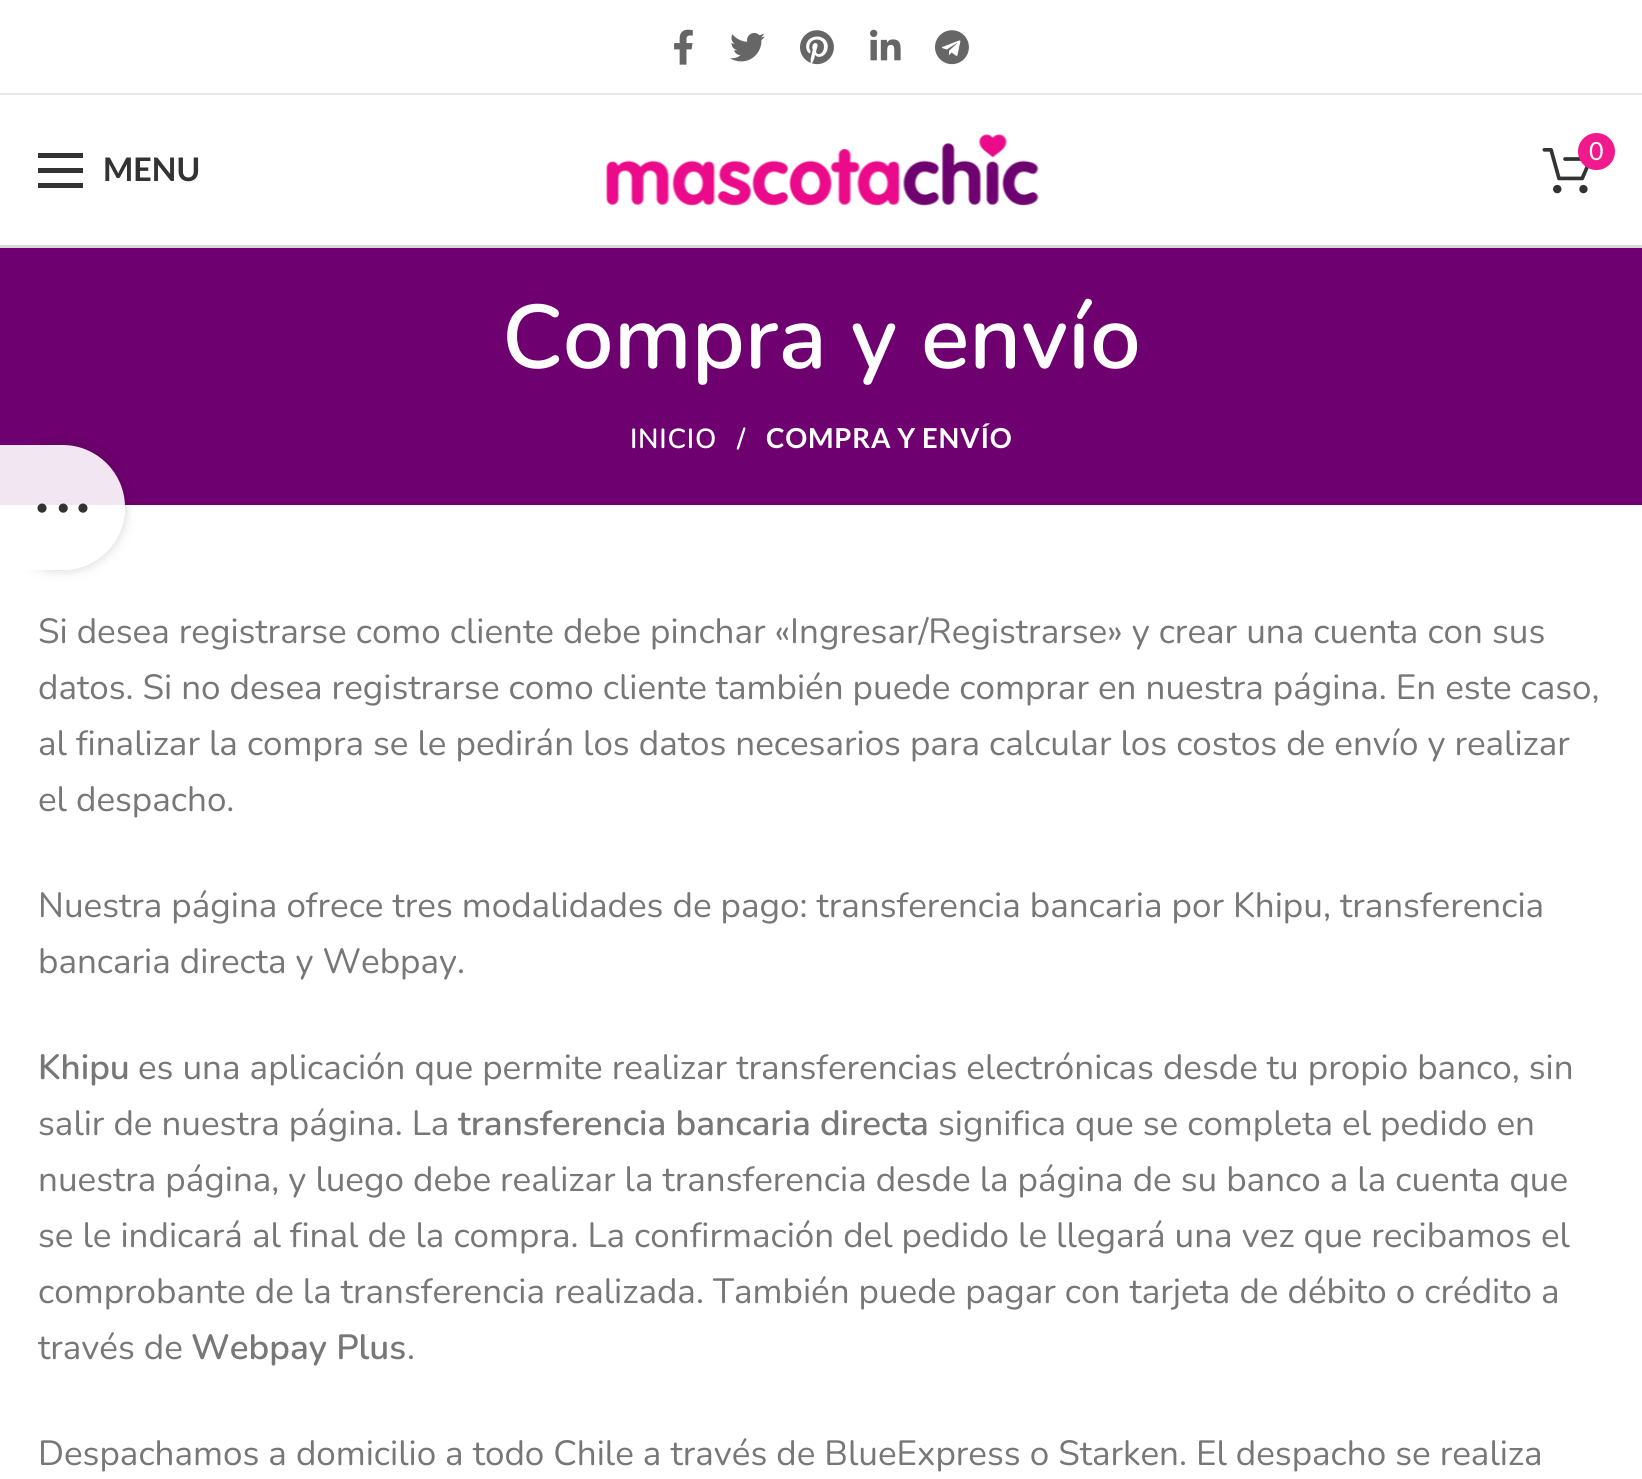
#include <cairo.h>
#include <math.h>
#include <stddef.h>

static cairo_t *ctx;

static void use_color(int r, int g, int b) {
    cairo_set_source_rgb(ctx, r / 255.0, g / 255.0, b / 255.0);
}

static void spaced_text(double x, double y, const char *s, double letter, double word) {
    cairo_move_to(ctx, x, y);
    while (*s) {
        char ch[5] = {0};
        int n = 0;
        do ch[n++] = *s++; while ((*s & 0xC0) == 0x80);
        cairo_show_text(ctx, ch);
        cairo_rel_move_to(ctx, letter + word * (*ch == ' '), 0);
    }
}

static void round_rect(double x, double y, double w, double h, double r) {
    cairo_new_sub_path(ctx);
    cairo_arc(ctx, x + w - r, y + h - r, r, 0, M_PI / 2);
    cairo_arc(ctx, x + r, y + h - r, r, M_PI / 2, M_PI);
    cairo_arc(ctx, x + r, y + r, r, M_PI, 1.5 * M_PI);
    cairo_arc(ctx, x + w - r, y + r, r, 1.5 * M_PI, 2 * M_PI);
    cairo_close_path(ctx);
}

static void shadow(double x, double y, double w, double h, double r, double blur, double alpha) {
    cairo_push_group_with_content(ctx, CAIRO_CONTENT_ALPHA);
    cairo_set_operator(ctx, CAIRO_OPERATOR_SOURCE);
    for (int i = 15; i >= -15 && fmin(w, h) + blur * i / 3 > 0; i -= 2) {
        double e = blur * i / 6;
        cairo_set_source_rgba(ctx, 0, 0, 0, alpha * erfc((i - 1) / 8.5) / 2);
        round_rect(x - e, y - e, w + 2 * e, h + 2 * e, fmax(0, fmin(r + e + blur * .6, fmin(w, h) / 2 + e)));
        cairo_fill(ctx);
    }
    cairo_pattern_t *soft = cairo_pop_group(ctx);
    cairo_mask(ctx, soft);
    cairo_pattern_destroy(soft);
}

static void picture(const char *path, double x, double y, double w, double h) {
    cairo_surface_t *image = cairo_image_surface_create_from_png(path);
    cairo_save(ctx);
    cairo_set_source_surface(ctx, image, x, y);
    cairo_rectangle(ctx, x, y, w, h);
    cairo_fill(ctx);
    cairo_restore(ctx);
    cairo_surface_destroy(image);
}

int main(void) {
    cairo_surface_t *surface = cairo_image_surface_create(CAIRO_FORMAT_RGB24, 1642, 1479);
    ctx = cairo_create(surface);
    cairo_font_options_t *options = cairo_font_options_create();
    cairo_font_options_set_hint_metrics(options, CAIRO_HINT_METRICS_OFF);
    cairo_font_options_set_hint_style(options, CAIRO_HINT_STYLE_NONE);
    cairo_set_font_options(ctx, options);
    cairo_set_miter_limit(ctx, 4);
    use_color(255, 255, 255);
    cairo_paint(ctx);
    use_color(218, 218, 218);
    cairo_rectangle(ctx, 0, 245, 1642, 3);
    cairo_fill(ctx);
    use_color(230, 230, 230);
    cairo_rectangle(ctx, 0, 93, 1642, 2);
    cairo_fill(ctx);
    picture("img1.png", 674, 29, 19, 36);
    picture("img2.png", 730, 33, 35, 29);
    picture("img3.png", 800, 30, 34, 35);
    picture("img4.png", 870, 29, 31, 32);
    picture("img5.png", 935, 30, 34, 35);
    picture("img6.png", 606, 134, 433, 72);
    picture("img7.png", 1542, 148, 47, 46);
    use_color(240, 26, 140);
    cairo_arc(ctx, 1596.5, 151.5, 18.5, 0, 2 * M_PI);
    cairo_fill(ctx);
    cairo_select_font_face(ctx, "Lato", CAIRO_FONT_SLANT_NORMAL, CAIRO_FONT_WEIGHT_NORMAL);
    cairo_set_font_size(ctx, 25);
    use_color(255, 255, 255);
    cairo_move_to(ctx, 1589, 160);
    cairo_show_text(ctx, "0");
    use_color(51, 51, 51);
    cairo_rectangle(ctx, 38, 168, 45, 5);
    cairo_fill(ctx);
    cairo_rectangle(ctx, 38, 153, 45, 5);
    cairo_fill(ctx);
    cairo_rectangle(ctx, 38, 183, 45, 5);
    cairo_fill(ctx);
    cairo_select_font_face(ctx, "Lato", CAIRO_FONT_SLANT_NORMAL, CAIRO_FONT_WEIGHT_BOLD);
    cairo_set_font_size(ctx, 32.5);
    cairo_move_to(ctx, 103, 181);
    cairo_show_text(ctx, "MENU");
    use_color(111, 0, 111);
    cairo_rectangle(ctx, 0, 248, 1642, 257);
    cairo_fill(ctx);
    cairo_select_font_face(ctx, "Nunito SemiBold", CAIRO_FONT_SLANT_NORMAL, CAIRO_FONT_WEIGHT_NORMAL);
    cairo_set_font_size(ctx, 90);
    use_color(255, 255, 255);
    cairo_move_to(ctx, 502, 368);
    cairo_show_text(ctx, "Compra y envío");
    cairo_set_font_size(ctx, 27.5);
    spaced_text(630, 448, "INICIO", 0.75, 0);
    spaced_text(737, 448, "/", 0.75, 0);
    cairo_select_font_face(ctx, "Lato", CAIRO_FONT_SLANT_NORMAL, CAIRO_FONT_WEIGHT_BOLD);
    spaced_text(766, 448, "COMPRA Y ENVÍO", 0.75, 0);
    cairo_select_font_face(ctx, "Nunito", CAIRO_FONT_SLANT_NORMAL, CAIRO_FONT_WEIGHT_NORMAL);
    cairo_set_font_size(ctx, 35);
    use_color(119, 119, 119);
    cairo_move_to(ctx, 38, 643);
    cairo_show_text(ctx, "Si desea registrarse como cliente debe pinchar «Ingresar/Registrarse» y crear una cuenta con sus");
    cairo_move_to(ctx, 38, 699);
    cairo_show_text(ctx, "datos. Si no desea registrarse como cliente también puede comprar en nuestra página. En este caso,");
    cairo_move_to(ctx, 38, 755);
    cairo_show_text(ctx, "al finalizar la compra se le pedirán los datos necesarios para calcular los costos de envío y realizar");
    cairo_move_to(ctx, 38, 811);
    cairo_show_text(ctx, "el despacho.");
    cairo_move_to(ctx, 38, 917);
    cairo_show_text(ctx, "Nuestra página ofrece tres modalidades de pago: transferencia bancaria por Khipu, transferencia");
    cairo_move_to(ctx, 38, 973);
    cairo_show_text(ctx, "bancaria directa y Webpay.");
    cairo_select_font_face(ctx, "Nunito SemiBold", CAIRO_FONT_SLANT_NORMAL, CAIRO_FONT_WEIGHT_NORMAL);
    cairo_move_to(ctx, 38, 1079);
    cairo_show_text(ctx, "Khipu");
    cairo_select_font_face(ctx, "Nunito", CAIRO_FONT_SLANT_NORMAL, CAIRO_FONT_WEIGHT_NORMAL);
    cairo_move_to(ctx, 138, 1079);
    cairo_show_text(ctx, "es una aplicación que permite realizar transferencias electrónicas desde tu propio banco, sin");
    cairo_move_to(ctx, 38, 1135);
    cairo_show_text(ctx, "salir de nuestra página. La");
    cairo_select_font_face(ctx, "Nunito SemiBold", CAIRO_FONT_SLANT_NORMAL, CAIRO_FONT_WEIGHT_NORMAL);
    cairo_move_to(ctx, 458, 1135);
    cairo_show_text(ctx, "transferencia bancaria directa");
    cairo_select_font_face(ctx, "Nunito", CAIRO_FONT_SLANT_NORMAL, CAIRO_FONT_WEIGHT_NORMAL);
    cairo_move_to(ctx, 938, 1135);
    cairo_show_text(ctx, "significa que se completa el pedido en");
    cairo_move_to(ctx, 38, 1191);
    cairo_show_text(ctx, "nuestra página, y luego debe realizar la transferencia desde la página de su banco a la cuenta que");
    cairo_move_to(ctx, 38, 1247);
    cairo_show_text(ctx, "se le indicará al final de la compra. La confirmación del pedido le llegará una vez que recibamos el");
    cairo_move_to(ctx, 38, 1303);
    cairo_show_text(ctx, "comprobante de la transferencia realizada. También puede pagar con tarjeta de débito o crédito a");
    cairo_move_to(ctx, 38, 1359);
    cairo_show_text(ctx, "través de");
    cairo_select_font_face(ctx, "Nunito SemiBold", CAIRO_FONT_SLANT_NORMAL, CAIRO_FONT_WEIGHT_NORMAL);
    cairo_move_to(ctx, 191, 1359);
    cairo_show_text(ctx, "Webpay Plus");
    cairo_select_font_face(ctx, "Nunito", CAIRO_FONT_SLANT_NORMAL, CAIRO_FONT_WEIGHT_NORMAL);
    cairo_move_to(ctx, 407, 1359);
    cairo_show_text(ctx, ".");
    cairo_move_to(ctx, 38, 1465);
    cairo_show_text(ctx, "Despachamos a domicilio a todo Chile a través de BlueExpress o Starken. El despacho se realiza");
    cairo_save(ctx);
    cairo_set_fill_rule(ctx, CAIRO_FILL_RULE_EVEN_ODD);
    cairo_new_path(ctx);
    cairo_move_to(ctx, 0, 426);
    cairo_line_to(ctx, 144, 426);
    cairo_line_to(ctx, 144, 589);
    cairo_line_to(ctx, 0, 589);
    cairo_close_path(ctx);
    cairo_move_to(ctx, 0, 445);
    cairo_line_to(ctx, 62.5, 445);
    cairo_curve_to(ctx, 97, 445, 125, 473, 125, 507.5);
    cairo_curve_to(ctx, 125, 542, 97, 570, 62.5, 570);
    cairo_line_to(ctx, 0, 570);
    cairo_close_path(ctx);
    cairo_clip(ctx);
    use_color(0, 0, 0);
    shadow(0, 445, 125, 125, 62.5, 6, 0.17);
    cairo_restore(ctx);
    cairo_set_source_rgba(ctx, 1, 1, 1, 0.9);
    cairo_new_path(ctx);
    cairo_move_to(ctx, 0, 445);
    cairo_line_to(ctx, 62.5, 445);
    cairo_curve_to(ctx, 97, 445, 125, 473, 125, 507.5);
    cairo_curve_to(ctx, 125, 542, 97, 570, 62.5, 570);
    cairo_line_to(ctx, 0, 570);
    cairo_close_path(ctx);
    cairo_fill(ctx);
    picture("img8.png", 37, 503, 51, 10);
    cairo_surface_write_to_png(surface, "result.png");
    cairo_font_options_destroy(options);
    cairo_destroy(ctx);
    cairo_surface_destroy(surface);
    return 0;
}
